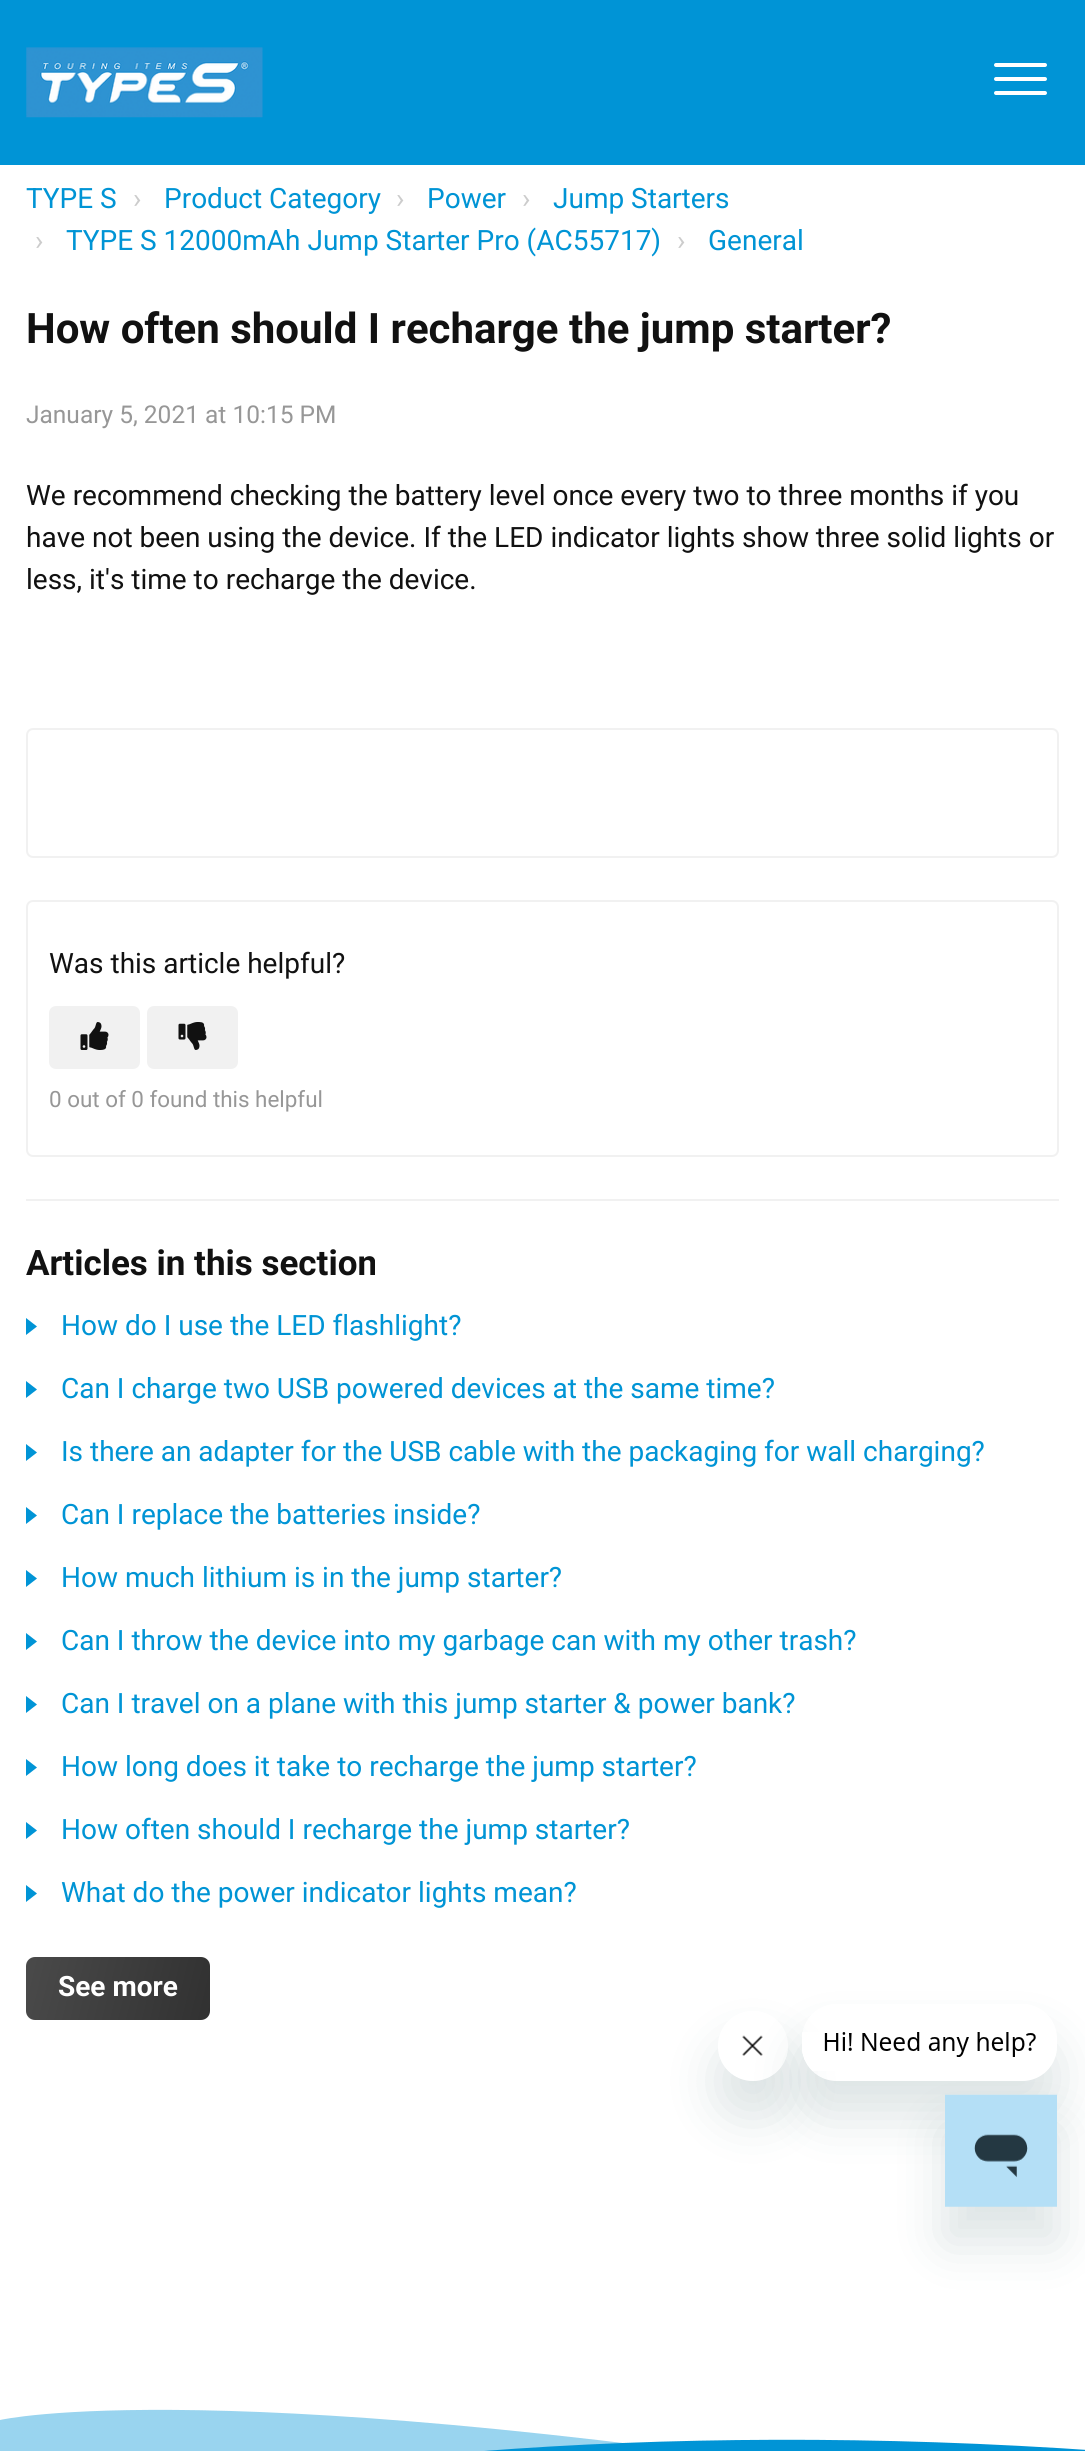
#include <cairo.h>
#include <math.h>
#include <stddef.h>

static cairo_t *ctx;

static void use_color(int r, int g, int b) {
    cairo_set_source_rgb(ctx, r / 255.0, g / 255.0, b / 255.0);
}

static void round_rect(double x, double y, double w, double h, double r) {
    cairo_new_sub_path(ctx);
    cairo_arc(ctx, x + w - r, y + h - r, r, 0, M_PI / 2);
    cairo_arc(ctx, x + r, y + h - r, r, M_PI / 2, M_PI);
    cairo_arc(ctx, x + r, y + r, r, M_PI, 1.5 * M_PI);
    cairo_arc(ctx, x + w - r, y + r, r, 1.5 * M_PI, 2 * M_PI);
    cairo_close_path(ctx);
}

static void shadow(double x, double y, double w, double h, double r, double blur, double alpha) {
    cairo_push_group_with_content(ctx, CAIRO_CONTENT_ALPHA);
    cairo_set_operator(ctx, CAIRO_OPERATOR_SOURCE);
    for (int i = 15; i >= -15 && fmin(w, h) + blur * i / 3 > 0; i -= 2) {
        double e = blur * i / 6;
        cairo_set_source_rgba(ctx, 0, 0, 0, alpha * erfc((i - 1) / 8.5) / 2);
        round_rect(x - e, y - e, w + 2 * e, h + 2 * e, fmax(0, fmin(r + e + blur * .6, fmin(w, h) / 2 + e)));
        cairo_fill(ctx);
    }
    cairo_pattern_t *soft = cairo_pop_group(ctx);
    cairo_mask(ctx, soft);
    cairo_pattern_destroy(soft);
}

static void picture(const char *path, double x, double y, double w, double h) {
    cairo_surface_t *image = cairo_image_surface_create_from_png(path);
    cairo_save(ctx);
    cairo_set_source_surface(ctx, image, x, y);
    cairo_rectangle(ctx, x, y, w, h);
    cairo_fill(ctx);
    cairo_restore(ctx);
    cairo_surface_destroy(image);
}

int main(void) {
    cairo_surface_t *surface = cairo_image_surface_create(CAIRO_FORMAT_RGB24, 1085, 2451);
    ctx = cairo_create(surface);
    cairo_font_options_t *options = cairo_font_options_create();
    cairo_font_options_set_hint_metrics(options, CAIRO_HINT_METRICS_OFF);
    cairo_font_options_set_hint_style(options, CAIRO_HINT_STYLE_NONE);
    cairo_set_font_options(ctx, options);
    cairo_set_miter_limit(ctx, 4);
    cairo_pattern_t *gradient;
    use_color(255, 255, 255);
    cairo_paint(ctx);
    use_color(0, 148, 214);
    cairo_rectangle(ctx, 0, 0, 1085, 165);
    cairo_fill(ctx);
    picture("img1.png", 26, 47, 237, 71);
    use_color(255, 255, 255);
    round_rect(994, 77, 53, 4, 2);
    cairo_fill(ctx);
    round_rect(994, 63, 53, 4, 2);
    cairo_fill(ctx);
    round_rect(994, 91, 53, 4, 2);
    cairo_fill(ctx);
    cairo_select_font_face(ctx, "Roboto", CAIRO_FONT_SLANT_NORMAL, CAIRO_FONT_WEIGHT_NORMAL);
    cairo_set_font_size(ctx, 28);
    use_color(0, 148, 213);
    cairo_move_to(ctx, 26, 208);
    cairo_show_text(ctx, "TYPE S");
    use_color(204, 204, 204);
    cairo_move_to(ctx, 133, 208);
    cairo_show_text(ctx, "›");
    use_color(0, 148, 213);
    cairo_move_to(ctx, 164, 208);
    cairo_show_text(ctx, "Product Category");
    use_color(204, 204, 204);
    cairo_move_to(ctx, 396, 208);
    cairo_show_text(ctx, "›");
    use_color(0, 148, 213);
    cairo_move_to(ctx, 427, 208);
    cairo_show_text(ctx, "Power");
    use_color(204, 204, 204);
    cairo_move_to(ctx, 522, 208);
    cairo_show_text(ctx, "›");
    use_color(0, 148, 213);
    cairo_move_to(ctx, 553, 208);
    cairo_show_text(ctx, "Jump Starters");
    use_color(204, 204, 204);
    cairo_move_to(ctx, 35, 250);
    cairo_show_text(ctx, "›");
    use_color(0, 148, 213);
    cairo_move_to(ctx, 66, 250);
    cairo_show_text(ctx, "TYPE S 12000mAh Jump Starter Pro (AC55717)");
    use_color(204, 204, 204);
    cairo_move_to(ctx, 677, 250);
    cairo_show_text(ctx, "›");
    use_color(0, 148, 213);
    cairo_move_to(ctx, 708, 250);
    cairo_show_text(ctx, "General");
    cairo_select_font_face(ctx, "Roboto", CAIRO_FONT_SLANT_NORMAL, CAIRO_FONT_WEIGHT_BOLD);
    cairo_set_font_size(ctx, 42);
    use_color(17, 17, 17);
    cairo_move_to(ctx, 26, 343);
    cairo_show_text(ctx, "How often should I recharge the jump starter?");
    cairo_select_font_face(ctx, "Roboto", CAIRO_FONT_SLANT_NORMAL, CAIRO_FONT_WEIGHT_NORMAL);
    cairo_set_font_size(ctx, 24.5);
    use_color(151, 151, 151);
    cairo_move_to(ctx, 26, 423);
    cairo_show_text(ctx, "January 5, 2021 at 10:15 PM");
    cairo_set_font_size(ctx, 28);
    use_color(17, 17, 17);
    cairo_move_to(ctx, 26, 505);
    cairo_show_text(ctx, "We recommend checking the battery level once every two to three months if you");
    cairo_move_to(ctx, 26, 547);
    cairo_show_text(ctx, "have not been using the device. If the LED indicator lights show three solid lights or");
    cairo_move_to(ctx, 26, 589);
    cairo_show_text(ctx, "less, it's time to recharge the device.");
    round_rect(27, 729, 1031, 128, 6);
    use_color(241, 241, 241);
    cairo_stroke(ctx);
    round_rect(27, 901, 1031, 255, 6);
    cairo_stroke(ctx);
    use_color(17, 17, 17);
    cairo_move_to(ctx, 49, 973);
    cairo_show_text(ctx, "Was this article helpful?");
    use_color(241, 241, 241);
    round_rect(49, 1006, 91, 63, 7);
    cairo_fill(ctx);
    picture("img2.png", 80, 1022, 29, 28);
    round_rect(147, 1006, 91, 63, 7);
    cairo_fill(ctx);
    picture("img3.png", 178, 1022, 29, 28);
    cairo_set_font_size(ctx, 22.4);
    use_color(151, 151, 151);
    cairo_move_to(ctx, 49, 1107);
    cairo_show_text(ctx, "0 out of 0 found this helpful");
    use_color(241, 241, 241);
    cairo_rectangle(ctx, 26, 1199, 1033, 2);
    cairo_fill(ctx);
    cairo_select_font_face(ctx, "Roboto", CAIRO_FONT_SLANT_NORMAL, CAIRO_FONT_WEIGHT_BOLD);
    cairo_set_font_size(ctx, 35);
    use_color(17, 17, 17);
    cairo_move_to(ctx, 26, 1275);
    cairo_show_text(ctx, "Articles in this section");
    use_color(0, 148, 214);
    cairo_new_path(ctx);
    cairo_move_to(ctx, 26, 1335);
    cairo_line_to(ctx, 26, 1318);
    cairo_line_to(ctx, 37, 1326.5);
    cairo_close_path(ctx);
    cairo_fill(ctx);
    cairo_select_font_face(ctx, "Roboto", CAIRO_FONT_SLANT_NORMAL, CAIRO_FONT_WEIGHT_NORMAL);
    cairo_set_font_size(ctx, 28);
    use_color(0, 148, 213);
    cairo_move_to(ctx, 61, 1335);
    cairo_show_text(ctx, "How do I use the LED flashlight?");
    use_color(0, 148, 214);
    cairo_new_path(ctx);
    cairo_move_to(ctx, 26, 1398);
    cairo_line_to(ctx, 26, 1381);
    cairo_line_to(ctx, 37, 1389.5);
    cairo_close_path(ctx);
    cairo_fill(ctx);
    use_color(0, 148, 213);
    cairo_move_to(ctx, 61, 1398);
    cairo_show_text(ctx, "Can I charge two USB powered devices at the same time?");
    use_color(0, 148, 214);
    cairo_new_path(ctx);
    cairo_move_to(ctx, 26, 1461);
    cairo_line_to(ctx, 26, 1444);
    cairo_line_to(ctx, 37, 1452.5);
    cairo_close_path(ctx);
    cairo_fill(ctx);
    use_color(0, 148, 213);
    cairo_move_to(ctx, 61, 1461);
    cairo_show_text(ctx, "Is there an adapter for the USB cable with the packaging for wall charging?");
    use_color(0, 148, 214);
    cairo_new_path(ctx);
    cairo_move_to(ctx, 26, 1524);
    cairo_line_to(ctx, 26, 1507);
    cairo_line_to(ctx, 37, 1515.5);
    cairo_close_path(ctx);
    cairo_fill(ctx);
    use_color(0, 148, 213);
    cairo_move_to(ctx, 61, 1524);
    cairo_show_text(ctx, "Can I replace the batteries inside?");
    use_color(0, 148, 214);
    cairo_new_path(ctx);
    cairo_move_to(ctx, 26, 1587);
    cairo_line_to(ctx, 26, 1570);
    cairo_line_to(ctx, 37, 1578.5);
    cairo_close_path(ctx);
    cairo_fill(ctx);
    use_color(0, 148, 213);
    cairo_move_to(ctx, 61, 1587);
    cairo_show_text(ctx, "How much lithium is in the jump starter?");
    use_color(0, 148, 214);
    cairo_new_path(ctx);
    cairo_move_to(ctx, 26, 1650);
    cairo_line_to(ctx, 26, 1633);
    cairo_line_to(ctx, 37, 1641.5);
    cairo_close_path(ctx);
    cairo_fill(ctx);
    use_color(0, 148, 213);
    cairo_move_to(ctx, 61, 1650);
    cairo_show_text(ctx, "Can I throw the device into my garbage can with my other trash?");
    use_color(0, 148, 214);
    cairo_new_path(ctx);
    cairo_move_to(ctx, 26, 1713);
    cairo_line_to(ctx, 26, 1696);
    cairo_line_to(ctx, 37, 1704.5);
    cairo_close_path(ctx);
    cairo_fill(ctx);
    use_color(0, 148, 213);
    cairo_move_to(ctx, 61, 1713);
    cairo_show_text(ctx, "Can I travel on a plane with this jump starter & power bank?");
    use_color(0, 148, 214);
    cairo_new_path(ctx);
    cairo_move_to(ctx, 26, 1776);
    cairo_line_to(ctx, 26, 1759);
    cairo_line_to(ctx, 37, 1767.5);
    cairo_close_path(ctx);
    cairo_fill(ctx);
    use_color(0, 148, 213);
    cairo_move_to(ctx, 61, 1776);
    cairo_show_text(ctx, "How long does it take to recharge the jump starter?");
    use_color(0, 148, 214);
    cairo_new_path(ctx);
    cairo_move_to(ctx, 26, 1839);
    cairo_line_to(ctx, 26, 1822);
    cairo_line_to(ctx, 37, 1830.5);
    cairo_close_path(ctx);
    cairo_fill(ctx);
    use_color(0, 148, 213);
    cairo_move_to(ctx, 61, 1839);
    cairo_show_text(ctx, "How often should I recharge the jump starter?");
    use_color(0, 148, 214);
    cairo_new_path(ctx);
    cairo_move_to(ctx, 26, 1902);
    cairo_line_to(ctx, 26, 1885);
    cairo_line_to(ctx, 37, 1893.5);
    cairo_close_path(ctx);
    cairo_fill(ctx);
    use_color(0, 148, 213);
    cairo_move_to(ctx, 61, 1902);
    cairo_show_text(ctx, "What do the power indicator lights mean?");
    gradient = cairo_pattern_create_linear(24, 1965, 212, 2011);
    cairo_pattern_add_color_stop_rgba(gradient, 0, 0.29, 0.29, 0.29, 1);
    cairo_pattern_add_color_stop_rgba(gradient, 1, 0.192, 0.192, 0.192, 1);
    cairo_set_source(ctx, gradient);
    cairo_pattern_destroy(gradient);
    round_rect(26, 1957, 184, 63, 9);
    cairo_fill(ctx);
    cairo_select_font_face(ctx, "Roboto", CAIRO_FONT_SLANT_NORMAL, CAIRO_FONT_WEIGHT_BOLD);
    use_color(255, 255, 255);
    cairo_move_to(ctx, 58, 1996);
    cairo_show_text(ctx, "See more");
    use_color(153, 212, 239);
    cairo_new_path(ctx);
    cairo_move_to(ctx, 0, 2420);
    cairo_curve_to(ctx, 0, 2420, 214, 2370, 967, 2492);
    cairo_curve_to(ctx, 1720, 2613, 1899, 2416, 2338, 2389);
    cairo_curve_to(ctx, 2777, 2362, 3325, 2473, 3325, 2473);
    cairo_line_to(ctx, 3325, 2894);
    cairo_line_to(ctx, 0, 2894);
    cairo_close_path(ctx);
    cairo_fill(ctx);
    use_color(0, 148, 214);
    cairo_new_path(ctx);
    cairo_move_to(ctx, 0, 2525);
    cairo_curve_to(ctx, 264, 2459, 648, 2419, 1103, 2451);
    cairo_curve_to(ctx, 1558, 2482, 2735, 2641, 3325, 2401);
    cairo_line_to(ctx, 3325, 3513);
    cairo_line_to(ctx, 0, 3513);
    cairo_close_path(ctx);
    cairo_fill(ctx);
    cairo_save(ctx);
    cairo_set_fill_rule(ctx, CAIRO_FILL_RULE_EVEN_ODD);
    cairo_new_path(ctx);
    cairo_move_to(ctx, 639, 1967);
    cairo_line_to(ctx, 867, 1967);
    cairo_line_to(ctx, 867, 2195);
    cairo_line_to(ctx, 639, 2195);
    cairo_close_path(ctx);
    cairo_move_to(ctx, 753, 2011);
    cairo_curve_to(ctx, 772.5, 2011, 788, 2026.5, 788, 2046);
    cairo_curve_to(ctx, 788, 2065.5, 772.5, 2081, 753, 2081);
    cairo_curve_to(ctx, 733.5, 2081, 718, 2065.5, 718, 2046);
    cairo_curve_to(ctx, 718, 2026.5, 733.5, 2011, 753, 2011);
    cairo_close_path(ctx);
    cairo_clip(ctx);
    use_color(23, 73, 77);
    shadow(718, 2046, 70, 70, 35, 26, 0.15);
    cairo_restore(ctx);
    picture("img5.png", 742, 2035, 21, 21);
    cairo_save(ctx);
    cairo_set_fill_rule(ctx, CAIRO_FILL_RULE_EVEN_ODD);
    cairo_new_path(ctx);
    cairo_move_to(ctx, 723, 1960);
    cairo_line_to(ctx, 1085, 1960);
    cairo_line_to(ctx, 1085, 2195);
    cairo_line_to(ctx, 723, 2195);
    cairo_close_path(ctx);
    cairo_move_to(ctx, 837, 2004);
    cairo_line_to(ctx, 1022, 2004);
    cairo_curve_to(ctx, 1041.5, 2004, 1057, 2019.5, 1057, 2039);
    cairo_line_to(ctx, 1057, 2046);
    cairo_curve_to(ctx, 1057, 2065.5, 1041.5, 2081, 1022, 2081);
    cairo_line_to(ctx, 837, 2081);
    cairo_curve_to(ctx, 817.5, 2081, 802, 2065.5, 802, 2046);
    cairo_line_to(ctx, 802, 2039);
    cairo_curve_to(ctx, 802, 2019.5, 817.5, 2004, 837, 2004);
    cairo_close_path(ctx);
    cairo_clip(ctx);
    use_color(23, 73, 77);
    shadow(802, 2039, 255, 77, 35, 26, 0.15);
    cairo_restore(ctx);
    picture("img4.png", 802, 2032, 234, 39);
    use_color(23, 73, 77);
    shadow(945, 2130, 112, 112, 0, 26, 0.15);
    picture("img6.png", 945, 2094, 112, 113);
    cairo_surface_write_to_png(surface, "result.png");
    cairo_font_options_destroy(options);
    cairo_destroy(ctx);
    cairo_surface_destroy(surface);
    return 0;
}
